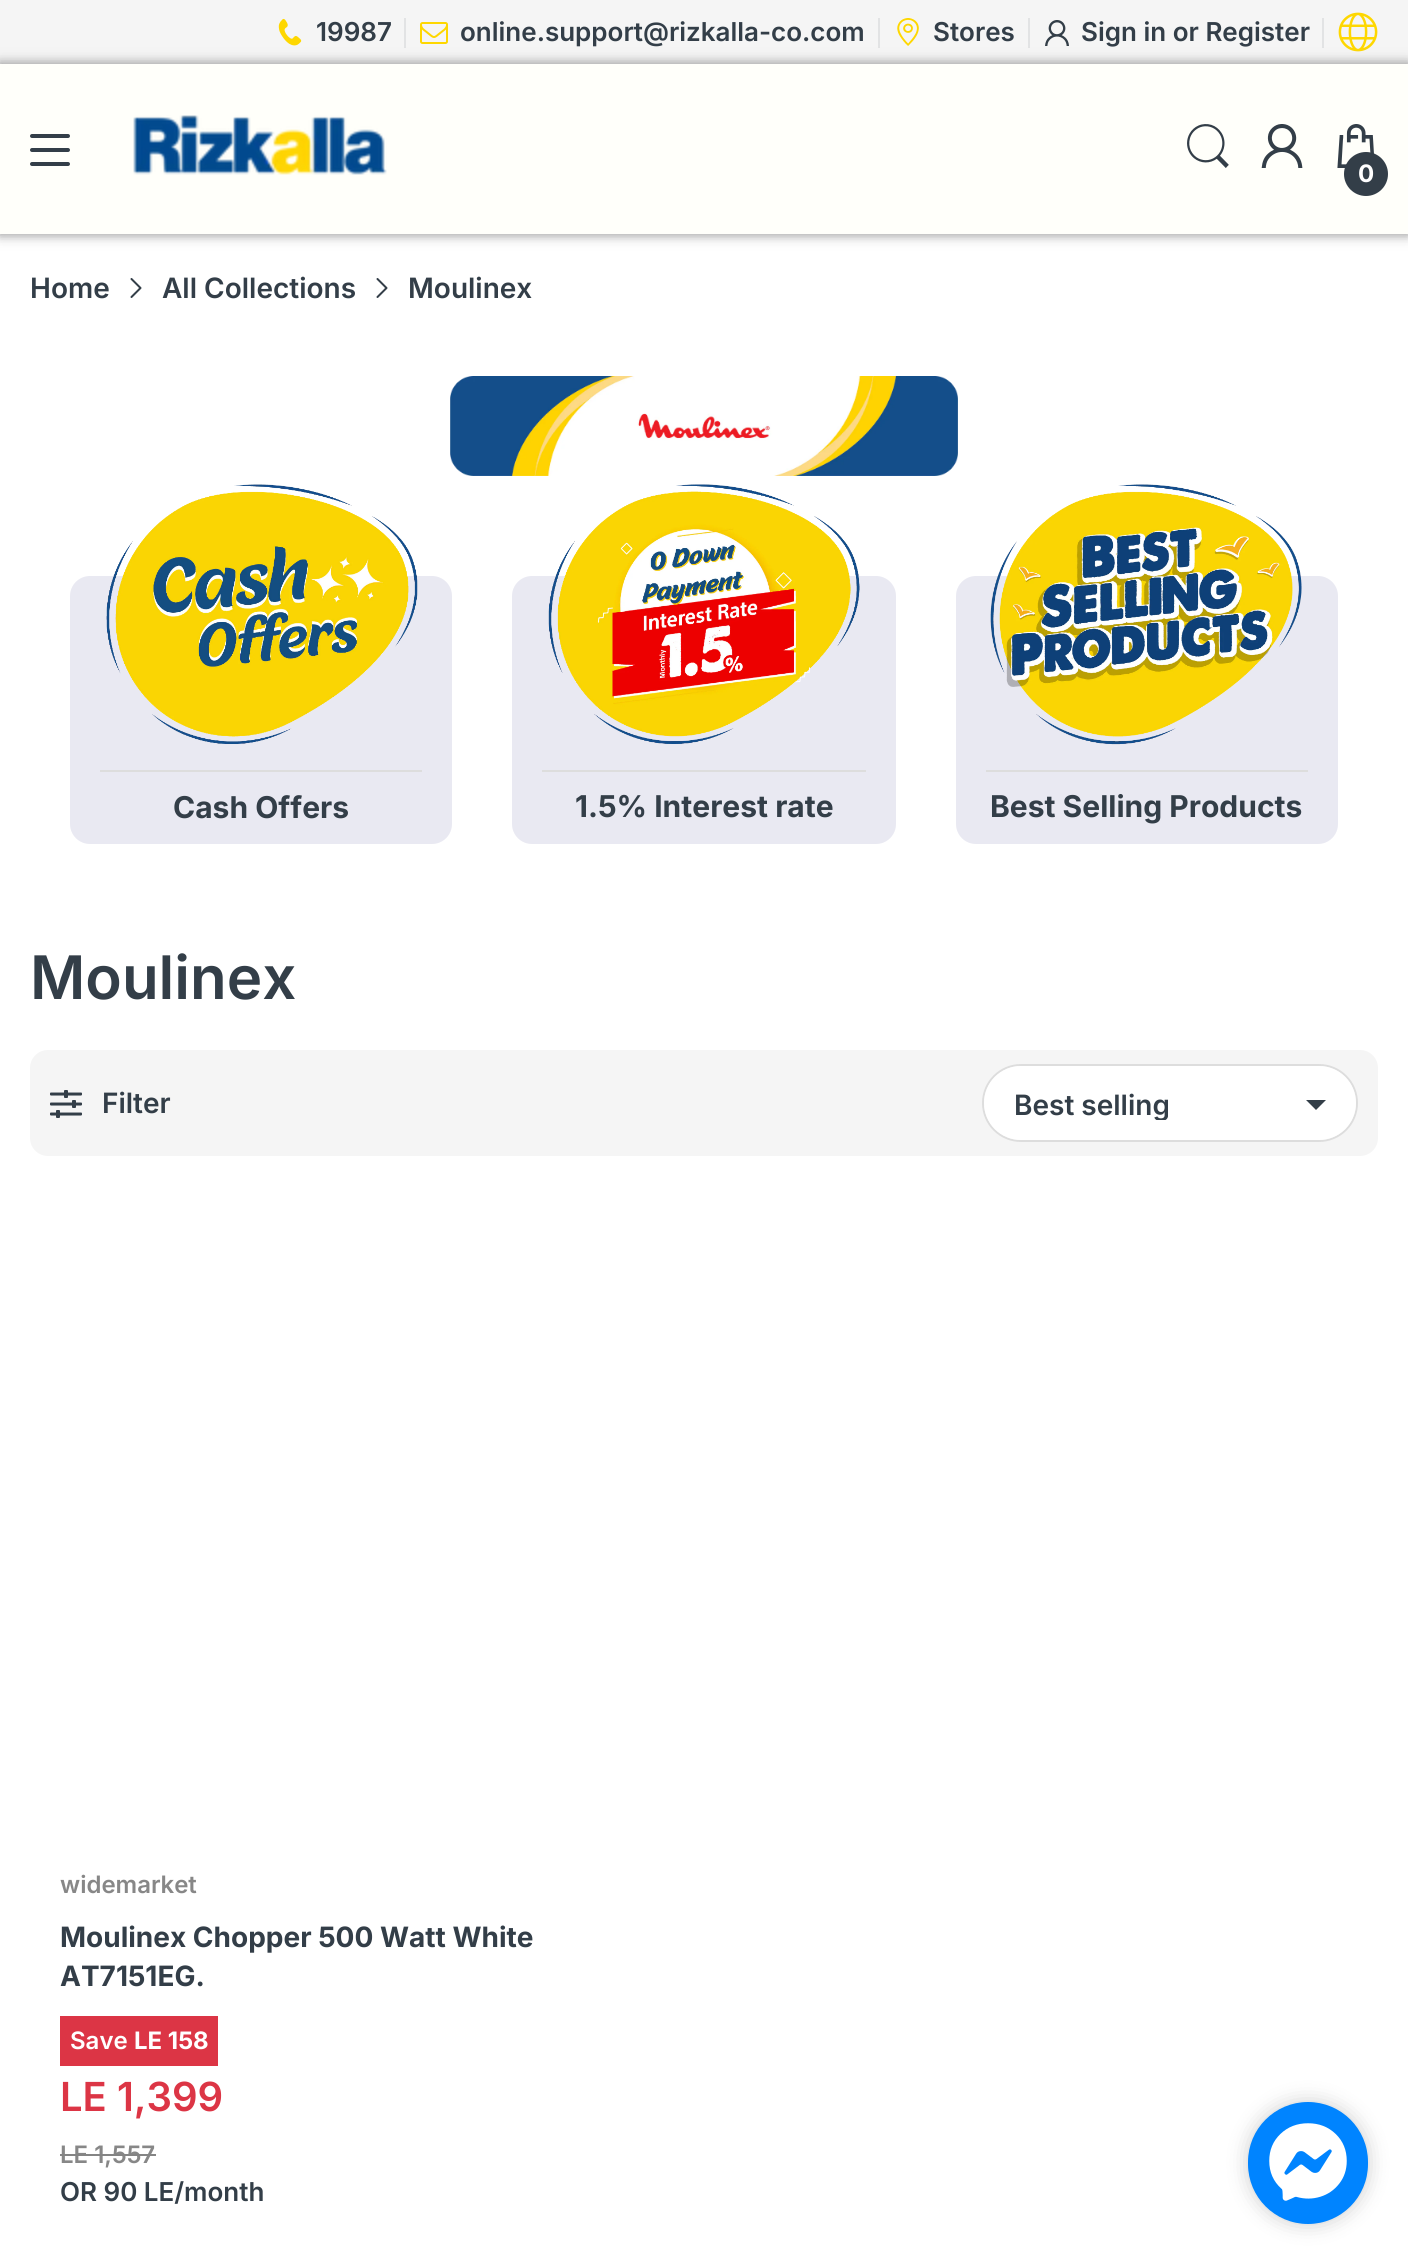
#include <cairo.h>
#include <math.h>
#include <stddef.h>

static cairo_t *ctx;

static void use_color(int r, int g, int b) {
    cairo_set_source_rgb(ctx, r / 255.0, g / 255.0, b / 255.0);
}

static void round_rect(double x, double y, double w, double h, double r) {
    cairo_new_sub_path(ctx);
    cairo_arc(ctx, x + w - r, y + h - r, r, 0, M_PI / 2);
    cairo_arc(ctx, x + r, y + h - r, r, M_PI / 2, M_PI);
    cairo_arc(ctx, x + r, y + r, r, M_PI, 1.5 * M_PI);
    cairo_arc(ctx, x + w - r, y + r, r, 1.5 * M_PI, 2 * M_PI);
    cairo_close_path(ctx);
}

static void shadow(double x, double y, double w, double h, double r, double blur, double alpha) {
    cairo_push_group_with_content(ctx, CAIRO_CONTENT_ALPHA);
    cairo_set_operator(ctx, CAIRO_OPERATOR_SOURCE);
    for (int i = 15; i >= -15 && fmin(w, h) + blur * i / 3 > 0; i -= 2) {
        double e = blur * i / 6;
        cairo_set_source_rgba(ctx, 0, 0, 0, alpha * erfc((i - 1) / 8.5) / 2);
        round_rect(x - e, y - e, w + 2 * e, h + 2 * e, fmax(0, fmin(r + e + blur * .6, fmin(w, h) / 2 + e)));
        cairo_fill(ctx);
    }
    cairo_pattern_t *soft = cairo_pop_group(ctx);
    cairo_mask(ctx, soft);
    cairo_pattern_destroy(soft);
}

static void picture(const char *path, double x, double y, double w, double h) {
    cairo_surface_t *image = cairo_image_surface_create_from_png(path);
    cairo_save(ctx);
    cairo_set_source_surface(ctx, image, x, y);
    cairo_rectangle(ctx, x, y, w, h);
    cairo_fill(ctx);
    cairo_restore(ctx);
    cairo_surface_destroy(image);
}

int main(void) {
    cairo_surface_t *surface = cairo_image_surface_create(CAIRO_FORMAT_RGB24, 1408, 2264);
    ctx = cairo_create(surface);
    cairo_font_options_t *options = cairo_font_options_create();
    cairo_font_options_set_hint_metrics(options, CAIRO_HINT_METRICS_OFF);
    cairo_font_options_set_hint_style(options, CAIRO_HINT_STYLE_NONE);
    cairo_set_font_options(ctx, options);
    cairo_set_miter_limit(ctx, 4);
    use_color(255, 255, 255);
    cairo_paint(ctx);
    use_color(245, 245, 245);
    cairo_rectangle(ctx, 0, 0, 1408, 64);
    cairo_fill(ctx);
    picture("img1.png", 278, 18, 24, 28);
    cairo_select_font_face(ctx, "Inter SemiBold", CAIRO_FONT_SLANT_NORMAL, CAIRO_FONT_WEIGHT_NORMAL);
    cairo_set_font_size(ctx, 26);
    use_color(51, 62, 72);
    cairo_move_to(ctx, 316, 41);
    cairo_show_text(ctx, "19987");
    use_color(226, 227, 228);
    cairo_rectangle(ctx, 404, 18, 2, 30);
    cairo_fill(ctx);
    picture("img2.png", 420, 22, 28, 22);
    use_color(51, 62, 72);
    cairo_move_to(ctx, 460, 41);
    cairo_show_text(ctx, "online.support@rizkalla-co.com");
    use_color(226, 227, 228);
    cairo_rectangle(ctx, 878, 18, 2, 30);
    cairo_fill(ctx);
    picture("img3.png", 897, 18, 22, 28);
    use_color(51, 62, 72);
    cairo_move_to(ctx, 933, 41);
    cairo_show_text(ctx, "Stores");
    use_color(226, 227, 228);
    cairo_rectangle(ctx, 1028, 18, 2, 30);
    cairo_fill(ctx);
    picture("img4.png", 1045, 20, 24, 26);
    use_color(51, 62, 72);
    cairo_move_to(ctx, 1081, 41);
    cairo_show_text(ctx, "Sign in or Register");
    use_color(226, 227, 228);
    cairo_rectangle(ctx, 1322, 18, 2, 30);
    cairo_fill(ctx);
    use_color(0, 0, 0);
    shadow(0, 64, 1408, 170, 0, 5, 0.5);
    picture("img5.png", 1338, 12, 40, 40);
    use_color(201, 201, 201);
    shadow(0, 64, 1408, 170, 0, 8, 0.75);
    use_color(255, 255, 250);
    cairo_rectangle(ctx, 0, 64, 1408, 170);
    cairo_fill(ctx);
    picture("img6.png", 30, 134, 40, 32);
    picture("img7.png", 133, 115, 254, 60);
    picture("img8.png", 1187, 124, 42, 44);
    picture("img9.png", 1261, 124, 42, 44);
    picture("img10.png", 1337, 124, 37, 44);
    use_color(51, 62, 72);
    cairo_arc(ctx, 1366, 174, 22, 0, 2 * M_PI);
    cairo_fill(ctx);
    cairo_select_font_face(ctx, "Inter", CAIRO_FONT_SLANT_NORMAL, CAIRO_FONT_WEIGHT_BOLD);
    cairo_set_font_size(ctx, 24);
    use_color(255, 255, 255);
    cairo_move_to(ctx, 1358, 182);
    cairo_show_text(ctx, "0");
    cairo_select_font_face(ctx, "Inter SemiBold", CAIRO_FONT_SLANT_NORMAL, CAIRO_FONT_WEIGHT_NORMAL);
    cairo_set_font_size(ctx, 28);
    use_color(51, 62, 72);
    cairo_move_to(ctx, 30, 298);
    cairo_show_text(ctx, "Home");
    picture("img11.png", 130, 278, 12, 20);
    cairo_move_to(ctx, 162, 298);
    cairo_show_text(ctx, "All Collections");
    picture("img11.png", 376, 278, 12, 20);
    cairo_move_to(ctx, 408, 298);
    cairo_show_text(ctx, "Moulinex");
    picture("img12.png", 450, 376, 508, 100);
    use_color(233, 233, 242);
    round_rect(70, 576, 382, 268, 20);
    cairo_fill(ctx);
    use_color(221, 221, 221);
    cairo_rectangle(ctx, 100, 770, 322, 2);
    cairo_fill(ctx);
    picture("img13.png", 106, 484, 312, 260);
    cairo_select_font_face(ctx, "Inter", CAIRO_FONT_SLANT_NORMAL, CAIRO_FONT_WEIGHT_BOLD);
    cairo_set_font_size(ctx, 30);
    use_color(51, 62, 72);
    cairo_move_to(ctx, 173, 818);
    cairo_show_text(ctx, "Cash Offers");
    use_color(233, 233, 242);
    round_rect(512, 576, 384, 268, 20);
    cairo_fill(ctx);
    use_color(221, 221, 221);
    cairo_rectangle(ctx, 542, 770, 324, 2);
    cairo_fill(ctx);
    picture("img14.png", 548, 484, 312, 260);
    use_color(51, 62, 72);
    cairo_move_to(ctx, 575, 817);
    cairo_show_text(ctx, "1.5% Interest rate");
    use_color(233, 233, 242);
    round_rect(956, 576, 382, 268, 20);
    cairo_fill(ctx);
    use_color(221, 221, 221);
    cairo_rectangle(ctx, 986, 770, 322, 2);
    cairo_fill(ctx);
    picture("img15.png", 990, 484, 312, 261);
    use_color(51, 62, 72);
    cairo_move_to(ctx, 990, 817);
    cairo_show_text(ctx, "Best Selling Products");
    cairo_select_font_face(ctx, "Inter SemiBold", CAIRO_FONT_SLANT_NORMAL, CAIRO_FONT_WEIGHT_NORMAL);
    cairo_set_font_size(ctx, 60);
    cairo_move_to(ctx, 30, 999);
    cairo_show_text(ctx, "Moulinex");
    use_color(245, 245, 245);
    round_rect(30, 1050, 1348, 106, 18);
    cairo_fill(ctx);
    picture("img16.png", 50, 1090, 32, 28);
    cairo_set_font_size(ctx, 28);
    use_color(51, 62, 72);
    cairo_move_to(ctx, 102, 1113);
    cairo_show_text(ctx, "Filter");
    round_rect(983, 1065, 374, 76, 38);
    use_color(221, 221, 221);
    cairo_stroke(ctx);
    use_color(255, 255, 255);
    round_rect(984, 1066, 372, 74, 37);
    cairo_fill(ctx);
    cairo_save(ctx);
    cairo_rectangle(ctx, 1014, 1086, 262, 34);
    cairo_clip(ctx);
    use_color(51, 62, 72);
    cairo_move_to(ctx, 1014, 1115);
    cairo_show_text(ctx, "Best selling");
    cairo_restore(ctx);
    use_color(51, 62, 72);
    cairo_set_fill_rule(ctx, CAIRO_FILL_RULE_EVEN_ODD);
    cairo_new_path(ctx);
    cairo_move_to(ctx, 1306, 1100);
    cairo_line_to(ctx, 1316, 1110);
    cairo_line_to(ctx, 1326, 1100);
    cairo_close_path(ctx);
    cairo_fill(ctx);
    cairo_set_font_size(ctx, 24);
    use_color(135, 135, 135);
    cairo_move_to(ctx, 60, 1893);
    cairo_show_text(ctx, "widemarket");
    cairo_select_font_face(ctx, "Inter", CAIRO_FONT_SLANT_NORMAL, CAIRO_FONT_WEIGHT_BOLD);
    cairo_set_font_size(ctx, 28);
    use_color(51, 62, 72);
    cairo_move_to(ctx, 60, 1947);
    cairo_show_text(ctx, "Moulinex Chopper 500 Watt White");
    cairo_move_to(ctx, 60, 1986);
    cairo_show_text(ctx, "AT7151EG.");
    use_color(220, 53, 69);
    cairo_rectangle(ctx, 60, 2016, 158, 50);
    cairo_fill(ctx);
    cairo_select_font_face(ctx, "Inter SemiBold", CAIRO_FONT_SLANT_NORMAL, CAIRO_FONT_WEIGHT_NORMAL);
    cairo_set_font_size(ctx, 24);
    use_color(255, 255, 255);
    cairo_move_to(ctx, 70, 2049);
    cairo_show_text(ctx, "Save");
    cairo_select_font_face(ctx, "Inter", CAIRO_FONT_SLANT_NORMAL, CAIRO_FONT_WEIGHT_BOLD);
    cairo_move_to(ctx, 134, 2049);
    cairo_show_text(ctx, "LE 158");
    cairo_select_font_face(ctx, "Inter SemiBold", CAIRO_FONT_SLANT_NORMAL, CAIRO_FONT_WEIGHT_NORMAL);
    cairo_set_font_size(ctx, 40);
    use_color(220, 53, 69);
    cairo_move_to(ctx, 60, 2111);
    cairo_show_text(ctx, "LE 1,399");
    cairo_set_font_size(ctx, 24);
    use_color(135, 135, 135);
    cairo_move_to(ctx, 60, 2163);
    cairo_show_text(ctx, "LE 1,557");
    use_color(132, 132, 132);
    cairo_rectangle(ctx, 60, 2154, 96, 2);
    cairo_fill(ctx);
    cairo_set_font_size(ctx, 26);
    use_color(51, 62, 72);
    cairo_move_to(ctx, 60, 2201);
    cairo_show_text(ctx, "OR 90 LE/month");
    use_color(0, 0, 0);
    shadow(1248, 2102, 120, 122, 60, 10, 0.2);
    use_color(0, 132, 255);
    round_rect(1248, 2102, 120, 122, 60);
    cairo_fill(ctx);
    picture("img17.png", 1269, 2123, 78, 78);
    cairo_surface_write_to_png(surface, "result.png");
    cairo_font_options_destroy(options);
    cairo_destroy(ctx);
    cairo_surface_destroy(surface);
    return 0;
}
